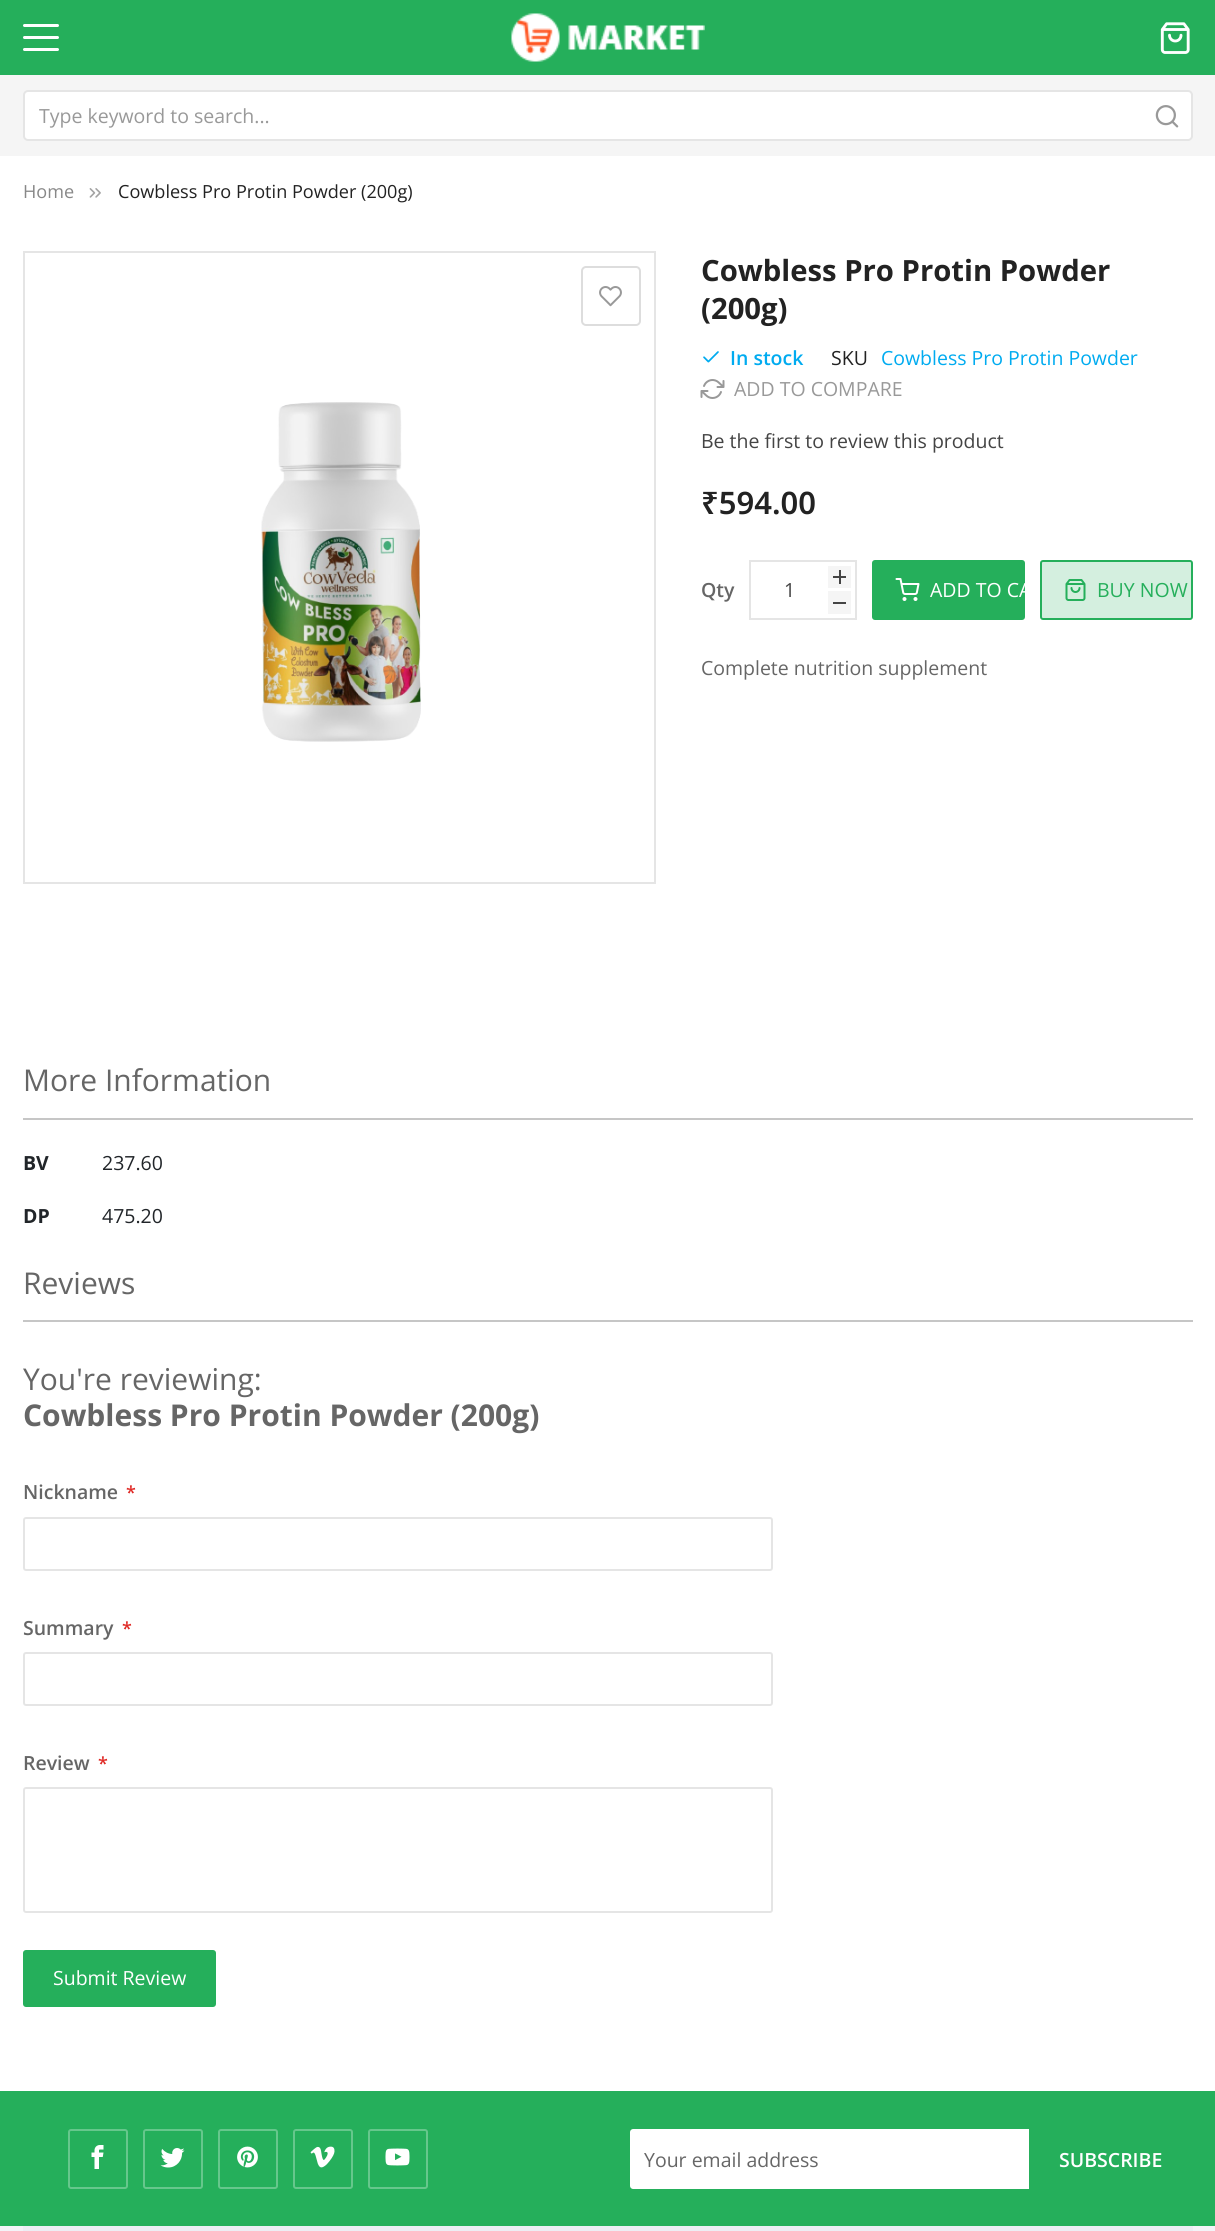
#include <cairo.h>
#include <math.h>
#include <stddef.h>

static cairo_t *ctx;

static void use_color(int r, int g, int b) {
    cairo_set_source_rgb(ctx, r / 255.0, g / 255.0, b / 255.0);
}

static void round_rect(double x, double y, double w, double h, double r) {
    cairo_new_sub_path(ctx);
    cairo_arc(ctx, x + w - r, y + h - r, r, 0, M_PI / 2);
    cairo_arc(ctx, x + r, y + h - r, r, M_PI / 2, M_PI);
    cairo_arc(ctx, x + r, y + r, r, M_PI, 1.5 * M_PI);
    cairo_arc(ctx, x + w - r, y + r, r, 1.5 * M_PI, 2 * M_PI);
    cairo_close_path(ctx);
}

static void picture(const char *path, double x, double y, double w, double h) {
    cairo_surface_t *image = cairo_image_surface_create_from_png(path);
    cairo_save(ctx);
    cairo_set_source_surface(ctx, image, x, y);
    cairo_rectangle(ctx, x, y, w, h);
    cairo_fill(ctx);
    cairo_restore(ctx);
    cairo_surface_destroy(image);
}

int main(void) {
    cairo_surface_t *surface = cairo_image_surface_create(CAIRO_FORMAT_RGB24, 1215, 2231);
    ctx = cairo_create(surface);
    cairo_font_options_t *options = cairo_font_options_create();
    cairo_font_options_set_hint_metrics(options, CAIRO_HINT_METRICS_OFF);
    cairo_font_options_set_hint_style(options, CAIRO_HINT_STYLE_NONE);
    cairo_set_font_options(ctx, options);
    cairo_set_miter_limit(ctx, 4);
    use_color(255, 255, 255);
    cairo_paint(ctx);
    use_color(37, 175, 91);
    cairo_rectangle(ctx, 0, 0, 1215, 75);
    cairo_fill(ctx);
    use_color(255, 255, 255);
    round_rect(23, 24, 36, 3, 1.5);
    cairo_fill(ctx);
    round_rect(23, 36, 36, 3, 1.5);
    cairo_fill(ctx);
    round_rect(23, 48, 36, 3, 1.5);
    cairo_fill(ctx);
    picture("img1.png", 511, 13, 194, 49);
    picture("img2.png", 1160, 22, 30, 32);
    use_color(245, 245, 245);
    cairo_rectangle(ctx, 0, 75, 1215, 81);
    cairo_fill(ctx);
    use_color(255, 255, 255);
    round_rect(24, 91, 1168, 49, 4);
    cairo_fill_preserve(ctx);
    use_color(229, 229, 229);
    cairo_stroke(ctx);
    cairo_select_font_face(ctx, "Open Sans", CAIRO_FONT_SLANT_NORMAL, CAIRO_FONT_WEIGHT_NORMAL);
    cairo_set_font_size(ctx, 19.5);
    use_color(153, 153, 153);
    cairo_move_to(ctx, 39, 123);
    cairo_show_text(ctx, "Type keyword to search...");
    picture("img3.png", 1155, 105, 24, 23);
    cairo_set_font_size(ctx, 18.1);
    use_color(136, 136, 136);
    cairo_move_to(ctx, 23, 198);
    cairo_show_text(ctx, "Home");
    picture("img4.png", 89, 188, 12, 10);
    use_color(34, 34, 34);
    cairo_move_to(ctx, 118, 198);
    cairo_show_text(ctx, "Cowbless Pro Protin Powder (200g)");
    cairo_rectangle(ctx, 24, 252, 631, 631);
    use_color(229, 229, 229);
    cairo_stroke(ctx);
    picture("img5.png", 261, 402, 160, 340);
    round_rect(582, 267, 58, 58, 4);
    use_color(221, 221, 221);
    cairo_stroke(ctx);
    picture("img6.png", 599, 286, 23, 21);
    cairo_select_font_face(ctx, "Open Sans", CAIRO_FONT_SLANT_NORMAL, CAIRO_FONT_WEIGHT_BOLD);
    cairo_set_font_size(ctx, 29.25);
    use_color(34, 34, 34);
    cairo_move_to(ctx, 701, 281);
    cairo_show_text(ctx, "Cowbless Pro Protin Powder");
    cairo_move_to(ctx, 701, 319);
    cairo_show_text(ctx, "(200g)");
    picture("img7.png", 703, 351, 16, 12);
    cairo_select_font_face(ctx, "Open Sans SemiBold", CAIRO_FONT_SLANT_NORMAL, CAIRO_FONT_WEIGHT_NORMAL);
    cairo_set_font_size(ctx, 19.5);
    use_color(0, 171, 240);
    cairo_move_to(ctx, 730, 365);
    cairo_show_text(ctx, "In stock");
    cairo_select_font_face(ctx, "Open Sans", CAIRO_FONT_SLANT_NORMAL, CAIRO_FONT_WEIGHT_NORMAL);
    use_color(34, 34, 34);
    cairo_move_to(ctx, 831, 365);
    cairo_show_text(ctx, "SKU");
    use_color(0, 171, 240);
    cairo_move_to(ctx, 881, 365);
    cairo_show_text(ctx, "Cowbless Pro Protin Powder");
    picture("img8.png", 700, 379, 25, 20);
    use_color(153, 153, 153);
    cairo_move_to(ctx, 734, 396);
    cairo_show_text(ctx, "ADD TO COMPARE");
    use_color(68, 68, 68);
    cairo_move_to(ctx, 701, 448);
    cairo_show_text(ctx, "Be the first to review this product");
    cairo_select_font_face(ctx, "Noto Sans SemiBold", CAIRO_FONT_SLANT_NORMAL, CAIRO_FONT_WEIGHT_NORMAL);
    cairo_set_font_size(ctx, 31);
    use_color(34, 34, 34);
    cairo_move_to(ctx, 701, 514);
    cairo_show_text(ctx, "₹594.00");
    cairo_select_font_face(ctx, "Open Sans SemiBold", CAIRO_FONT_SLANT_NORMAL, CAIRO_FONT_WEIGHT_NORMAL);
    cairo_set_font_size(ctx, 19.5);
    use_color(102, 102, 102);
    cairo_move_to(ctx, 701, 597);
    cairo_show_text(ctx, "Qty");
    cairo_rectangle(ctx, 750, 561, 106, 58);
    use_color(229, 229, 229);
    cairo_stroke(ctx);
    cairo_select_font_face(ctx, "Open Sans", CAIRO_FONT_SLANT_NORMAL, CAIRO_FONT_WEIGHT_NORMAL);
    use_color(68, 68, 68);
    cairo_move_to(ctx, 784, 597);
    cairo_show_text(ctx, "1");
    use_color(245, 245, 245);
    cairo_rectangle(ctx, 828, 566, 23, 22);
    cairo_fill(ctx);
    use_color(68, 68, 68);
    cairo_rectangle(ctx, 833, 576, 13, 2);
    cairo_fill(ctx);
    cairo_rectangle(ctx, 839, 570, 2, 14);
    cairo_fill(ctx);
    use_color(245, 245, 245);
    cairo_rectangle(ctx, 828, 591, 23, 23);
    cairo_fill(ctx);
    use_color(68, 68, 68);
    cairo_rectangle(ctx, 833, 602, 13, 2);
    cairo_fill(ctx);
    use_color(37, 175, 91);
    round_rect(873, 561, 151, 58, 2);
    cairo_fill_preserve(ctx);
    cairo_stroke(ctx);
    picture("img9.png", 895, 578, 25, 23);
    use_color(255, 255, 255);
    cairo_move_to(ctx, 930, 597);
    cairo_show_text(ctx, "ADD TO CA");
    use_color(212, 239, 223);
    round_rect(1041, 561, 151, 58, 2);
    cairo_fill_preserve(ctx);
    use_color(37, 175, 91);
    cairo_stroke(ctx);
    picture("img10.png", 1065, 579, 21, 22);
    cairo_move_to(ctx, 1097, 597);
    cairo_show_text(ctx, "BUY NOW");
    use_color(102, 102, 102);
    cairo_move_to(ctx, 701, 675);
    cairo_show_text(ctx, "Complete nutrition supplement");
    use_color(198, 198, 198);
    cairo_rectangle(ctx, 23, 1118, 1170, 2);
    cairo_fill(ctx);
    cairo_set_font_size(ctx, 30);
    use_color(102, 102, 102);
    cairo_move_to(ctx, 23, 1091);
    cairo_show_text(ctx, "More Information");
    cairo_select_font_face(ctx, "Open Sans", CAIRO_FONT_SLANT_NORMAL, CAIRO_FONT_WEIGHT_BOLD);
    cairo_set_font_size(ctx, 19.5);
    use_color(33, 37, 41);
    cairo_move_to(ctx, 23, 1170);
    cairo_show_text(ctx, "BV");
    cairo_select_font_face(ctx, "Open Sans", CAIRO_FONT_SLANT_NORMAL, CAIRO_FONT_WEIGHT_NORMAL);
    cairo_move_to(ctx, 102, 1170);
    cairo_show_text(ctx, "237.60");
    cairo_select_font_face(ctx, "Open Sans", CAIRO_FONT_SLANT_NORMAL, CAIRO_FONT_WEIGHT_BOLD);
    cairo_move_to(ctx, 23, 1223);
    cairo_show_text(ctx, "DP");
    cairo_select_font_face(ctx, "Open Sans", CAIRO_FONT_SLANT_NORMAL, CAIRO_FONT_WEIGHT_NORMAL);
    cairo_move_to(ctx, 102, 1223);
    cairo_show_text(ctx, "475.20");
    use_color(198, 198, 198);
    cairo_rectangle(ctx, 23, 1320, 1170, 2);
    cairo_fill(ctx);
    cairo_set_font_size(ctx, 30);
    use_color(102, 102, 102);
    cairo_move_to(ctx, 23, 1294);
    cairo_show_text(ctx, "Reviews");
    cairo_move_to(ctx, 23, 1390);
    cairo_show_text(ctx, "You're reviewing:");
    cairo_select_font_face(ctx, "Open Sans", CAIRO_FONT_SLANT_NORMAL, CAIRO_FONT_WEIGHT_BOLD);
    cairo_move_to(ctx, 23, 1426);
    cairo_show_text(ctx, "Cowbless Pro Protin Powder (200g)");
    cairo_select_font_face(ctx, "Open Sans SemiBold", CAIRO_FONT_SLANT_NORMAL, CAIRO_FONT_WEIGHT_NORMAL);
    cairo_set_font_size(ctx, 19.5);
    cairo_move_to(ctx, 23, 1499);
    cairo_show_text(ctx, "Nickname");
    cairo_set_font_size(ctx, 18);
    use_color(224, 43, 39);
    cairo_move_to(ctx, 126, 1499);
    cairo_show_text(ctx, "*");
    round_rect(24, 1518, 748, 52, 2);
    use_color(229, 229, 229);
    cairo_stroke(ctx);
    cairo_set_font_size(ctx, 19.5);
    use_color(102, 102, 102);
    cairo_move_to(ctx, 23, 1635);
    cairo_show_text(ctx, "Summary");
    cairo_set_font_size(ctx, 18);
    use_color(224, 43, 39);
    cairo_move_to(ctx, 122, 1635);
    cairo_show_text(ctx, "*");
    round_rect(24, 1653, 748, 52, 2);
    use_color(229, 229, 229);
    cairo_stroke(ctx);
    cairo_set_font_size(ctx, 19.5);
    use_color(102, 102, 102);
    cairo_move_to(ctx, 23, 1770);
    cairo_show_text(ctx, "Review");
    cairo_set_font_size(ctx, 18);
    use_color(224, 43, 39);
    cairo_move_to(ctx, 98, 1770);
    cairo_show_text(ctx, "*");
    round_rect(24, 1788, 748, 124, 2);
    use_color(229, 229, 229);
    cairo_stroke(ctx);
    use_color(37, 175, 91);
    round_rect(23, 1950, 193, 57, 3);
    cairo_fill(ctx);
    cairo_select_font_face(ctx, "Open Sans", CAIRO_FONT_SLANT_NORMAL, CAIRO_FONT_WEIGHT_NORMAL);
    cairo_set_font_size(ctx, 19.5);
    use_color(255, 255, 255);
    cairo_move_to(ctx, 53, 1985);
    cairo_show_text(ctx, "Submit Review");
    use_color(37, 175, 91);
    cairo_rectangle(ctx, 0, 2091, 1215, 135);
    cairo_fill(ctx);
    round_rect(69, 2130, 58, 58, 2);
    use_color(102, 199, 140);
    cairo_stroke(ctx);
    picture("img11.png", 91, 2145, 13, 24);
    round_rect(144, 2130, 58, 58, 2);
    cairo_stroke(ctx);
    picture("img12.png", 160, 2148, 25, 20);
    round_rect(219, 2130, 58, 58, 2);
    cairo_stroke(ctx);
    picture("img13.png", 237, 2146, 21, 22);
    round_rect(294, 2130, 58, 58, 2);
    cairo_stroke(ctx);
    picture("img14.png", 310, 2146, 25, 22);
    round_rect(369, 2130, 58, 58, 2);
    cairo_stroke(ctx);
    picture("img15.png", 385, 2148, 25, 18);
    use_color(255, 255, 255);
    cairo_new_path(ctx);
    cairo_move_to(ctx, 633, 2129);
    cairo_line_to(ctx, 1029, 2129);
    cairo_line_to(ctx, 1029, 2189);
    cairo_line_to(ctx, 633, 2189);
    cairo_curve_to(ctx, 631.5, 2189, 630, 2187.5, 630, 2186);
    cairo_line_to(ctx, 630, 2132);
    cairo_curve_to(ctx, 630, 2130.5, 631.5, 2129, 633, 2129);
    cairo_close_path(ctx);
    cairo_fill(ctx);
    use_color(102, 102, 102);
    cairo_move_to(ctx, 644, 2167);
    cairo_show_text(ctx, "Your email address");
    cairo_select_font_face(ctx, "Open Sans SemiBold", CAIRO_FONT_SLANT_NORMAL, CAIRO_FONT_WEIGHT_NORMAL);
    use_color(255, 255, 255);
    cairo_move_to(ctx, 1059, 2167);
    cairo_show_text(ctx, "SUBSCRIBE");
    use_color(243, 244, 248);
    cairo_rectangle(ctx, 0, 2226, 1215, 5);
    cairo_fill(ctx);
    use_color(236, 238, 244);
    cairo_rectangle(ctx, 23, 2226, 1170, 5);
    cairo_fill(ctx);
    cairo_surface_write_to_png(surface, "result.png");
    cairo_font_options_destroy(options);
    cairo_destroy(ctx);
    cairo_surface_destroy(surface);
    return 0;
}
